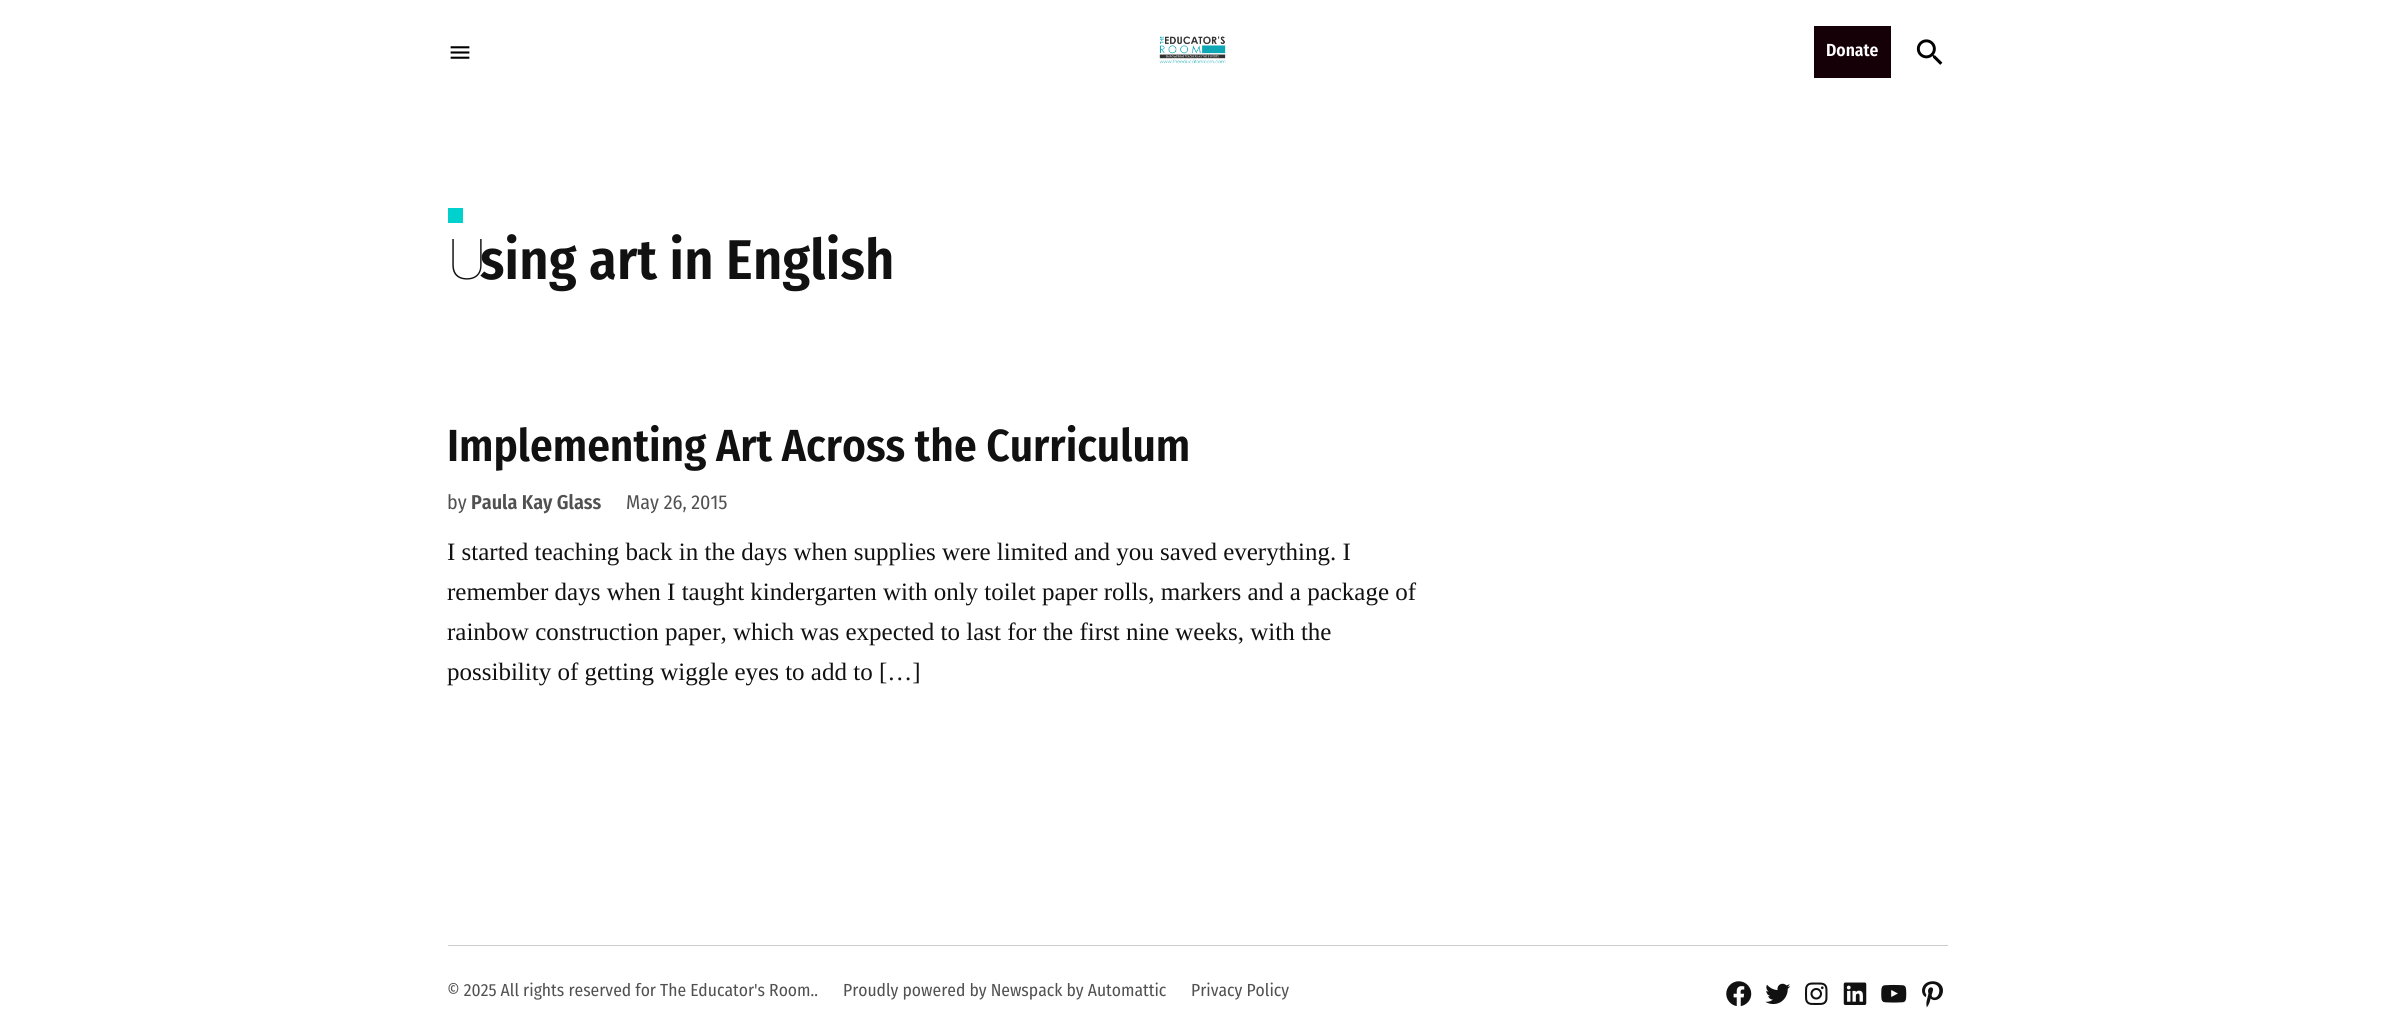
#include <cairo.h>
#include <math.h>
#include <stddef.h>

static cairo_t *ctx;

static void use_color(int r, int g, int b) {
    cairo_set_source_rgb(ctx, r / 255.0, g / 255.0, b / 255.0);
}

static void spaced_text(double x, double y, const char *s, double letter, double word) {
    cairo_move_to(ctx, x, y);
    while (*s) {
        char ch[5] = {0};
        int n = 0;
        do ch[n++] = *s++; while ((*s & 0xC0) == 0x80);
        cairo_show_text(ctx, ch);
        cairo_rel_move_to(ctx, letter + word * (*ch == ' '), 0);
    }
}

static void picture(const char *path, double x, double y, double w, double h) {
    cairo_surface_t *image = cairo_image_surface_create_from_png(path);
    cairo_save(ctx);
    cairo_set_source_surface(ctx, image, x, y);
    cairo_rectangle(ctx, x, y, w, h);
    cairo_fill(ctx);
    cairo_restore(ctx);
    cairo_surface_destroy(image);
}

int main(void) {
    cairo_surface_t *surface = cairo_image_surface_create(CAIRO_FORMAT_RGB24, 2393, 1036);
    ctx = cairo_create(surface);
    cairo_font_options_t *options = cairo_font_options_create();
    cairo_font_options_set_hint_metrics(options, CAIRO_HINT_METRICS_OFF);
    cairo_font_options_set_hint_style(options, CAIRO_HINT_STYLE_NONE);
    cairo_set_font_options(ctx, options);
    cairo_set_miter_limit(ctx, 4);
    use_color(255, 255, 255);
    cairo_paint(ctx);
    picture("img1.png", 450, 46, 20, 13);
    picture("img2.png", 1159, 36, 67, 28);
    use_color(20, 0, 6);
    cairo_rectangle(ctx, 1814, 26, 77, 52);
    cairo_fill(ctx);
    cairo_select_font_face(ctx, "Fira Sans Condensed SemiBold", CAIRO_FONT_SLANT_NORMAL, CAIRO_FONT_WEIGHT_NORMAL);
    cairo_set_font_size(ctx, 17.5);
    use_color(255, 255, 255);
    cairo_move_to(ctx, 1826, 56);
    cairo_show_text(ctx, "Donate");
    picture("img3.png", 1916, 39, 27, 26);
    use_color(0, 209, 205);
    cairo_rectangle(ctx, 448, 208, 15, 15);
    cairo_fill(ctx);
    cairo_select_font_face(ctx, "Noto Sans Thin", CAIRO_FONT_SLANT_NORMAL, CAIRO_FONT_WEIGHT_NORMAL);
    cairo_set_font_size(ctx, 56);
    use_color(17, 17, 17);
    spaced_text(447, 279, "U", 0.25, 0);
    cairo_select_font_face(ctx, "Fira Sans Condensed SemiBold", CAIRO_FONT_SLANT_NORMAL, CAIRO_FONT_WEIGHT_NORMAL);
    spaced_text(480, 279, "sing art in English", 0.25, 0);
    cairo_set_font_size(ctx, 45);
    cairo_move_to(ctx, 447, 461);
    cairo_show_text(ctx, "Implementing Art Across the Curriculum");
    cairo_select_font_face(ctx, "Fira Sans Condensed", CAIRO_FONT_SLANT_NORMAL, CAIRO_FONT_WEIGHT_NORMAL);
    cairo_set_font_size(ctx, 20);
    use_color(81, 81, 81);
    cairo_move_to(ctx, 447, 509);
    cairo_show_text(ctx, "by");
    cairo_select_font_face(ctx, "Fira Sans Condensed SemiBold", CAIRO_FONT_SLANT_NORMAL, CAIRO_FONT_WEIGHT_NORMAL);
    cairo_move_to(ctx, 471, 509);
    cairo_show_text(ctx, "Paula Kay Glass");
    cairo_select_font_face(ctx, "Fira Sans Condensed", CAIRO_FONT_SLANT_NORMAL, CAIRO_FONT_WEIGHT_NORMAL);
    cairo_move_to(ctx, 626, 509);
    cairo_show_text(ctx, "May 26, 2015");
    cairo_select_font_face(ctx, "Liberation Serif", CAIRO_FONT_SLANT_NORMAL, CAIRO_FONT_WEIGHT_NORMAL);
    cairo_set_font_size(ctx, 25);
    use_color(17, 17, 17);
    cairo_move_to(ctx, 447, 560);
    cairo_show_text(ctx, "I started teaching back in the days when supplies were limited and you saved everything. I");
    cairo_move_to(ctx, 447, 600);
    cairo_show_text(ctx, "remember days when I taught kindergarten with only toilet paper rolls, markers and a package of");
    cairo_move_to(ctx, 447, 640);
    cairo_show_text(ctx, "rainbow construction paper, which was expected to last for the first nine weeks, with the");
    cairo_move_to(ctx, 447, 680);
    cairo_show_text(ctx, "possibility of getting wiggle eyes to add to […]");
    use_color(204, 204, 204);
    cairo_rectangle(ctx, 448, 945, 1500, 1);
    cairo_fill(ctx);
    cairo_select_font_face(ctx, "Fira Sans Condensed", CAIRO_FONT_SLANT_NORMAL, CAIRO_FONT_WEIGHT_NORMAL);
    cairo_set_font_size(ctx, 17.5);
    use_color(81, 81, 81);
    cairo_move_to(ctx, 447, 996);
    cairo_show_text(ctx, "© 2025 All rights reserved for The Educator's Room..");
    cairo_move_to(ctx, 843, 996);
    cairo_show_text(ctx, "Proudly powered by Newspack by Automattic");
    cairo_move_to(ctx, 1191, 996);
    cairo_show_text(ctx, "Privacy Policy");
    picture("img4.png", 1726, 981, 26, 26);
    picture("img5.png", 1765, 983, 26, 22);
    picture("img6.png", 1805, 982, 23, 23);
    picture("img7.png", 1843, 982, 24, 23);
    picture("img8.png", 1881, 984, 26, 19);
    picture("img9.png", 1922, 981, 21, 27);
    cairo_surface_write_to_png(surface, "result.png");
    cairo_font_options_destroy(options);
    cairo_destroy(ctx);
    cairo_surface_destroy(surface);
    return 0;
}
